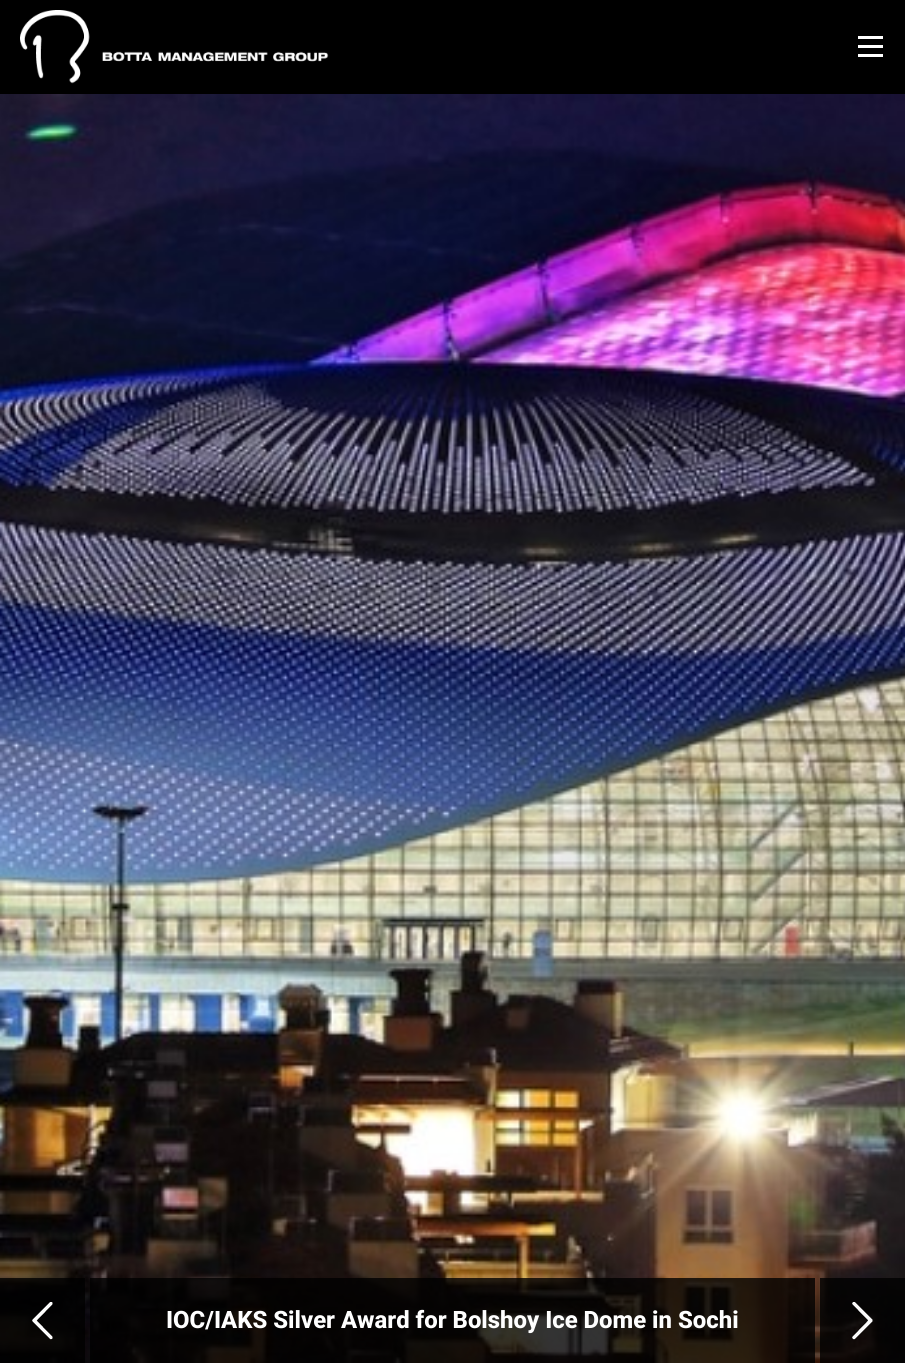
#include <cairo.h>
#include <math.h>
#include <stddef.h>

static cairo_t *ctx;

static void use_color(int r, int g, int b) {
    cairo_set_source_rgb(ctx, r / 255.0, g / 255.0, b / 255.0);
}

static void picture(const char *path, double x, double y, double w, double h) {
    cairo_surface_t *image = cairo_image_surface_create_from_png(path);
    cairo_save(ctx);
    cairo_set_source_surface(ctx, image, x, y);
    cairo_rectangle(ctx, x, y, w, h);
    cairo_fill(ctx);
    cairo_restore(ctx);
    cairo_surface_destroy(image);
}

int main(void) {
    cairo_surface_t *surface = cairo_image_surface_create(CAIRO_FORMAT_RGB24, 905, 1363);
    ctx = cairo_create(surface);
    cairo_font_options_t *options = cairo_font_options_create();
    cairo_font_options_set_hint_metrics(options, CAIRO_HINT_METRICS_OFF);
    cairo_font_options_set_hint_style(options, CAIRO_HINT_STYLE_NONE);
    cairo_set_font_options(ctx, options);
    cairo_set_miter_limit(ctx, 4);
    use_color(255, 255, 255);
    cairo_paint(ctx);
    use_color(0, 0, 0);
    cairo_rectangle(ctx, 0, 0, 905, 94);
    cairo_fill(ctx);
    picture("img1.png", 20, 10, 309, 74);
    use_color(255, 255, 255);
    cairo_rectangle(ctx, 858, 36, 25, 3);
    cairo_fill(ctx);
    cairo_rectangle(ctx, 858, 45, 25, 3);
    cairo_fill(ctx);
    cairo_rectangle(ctx, 858, 54, 25, 3);
    cairo_fill(ctx);
    picture("img4.png", 0, 94, 905, 1269);
    cairo_set_source_rgba(ctx, 0, 0, 0, 0.8);
    cairo_rectangle(ctx, 0, 1278, 85, 85);
    cairo_fill(ctx);
    picture("img2.png", 32, 1302, 21, 38);
    cairo_rectangle(ctx, 820, 1278, 85, 85);
    cairo_fill(ctx);
    picture("img3.png", 852, 1302, 21, 38);
    cairo_rectangle(ctx, 90, 1278, 725, 85);
    cairo_fill(ctx);
    cairo_select_font_face(ctx, "Roboto ExtraBold", CAIRO_FONT_SLANT_NORMAL, CAIRO_FONT_WEIGHT_NORMAL);
    cairo_set_font_size(ctx, 23.9);
    use_color(255, 255, 255);
    cairo_move_to(ctx, 166, 1328);
    cairo_show_text(ctx, "IOC/IAKS Silver Award for Bolshoy Ice Dome in Sochi");
    cairo_surface_write_to_png(surface, "result.png");
    cairo_font_options_destroy(options);
    cairo_destroy(ctx);
    cairo_surface_destroy(surface);
    return 0;
}
